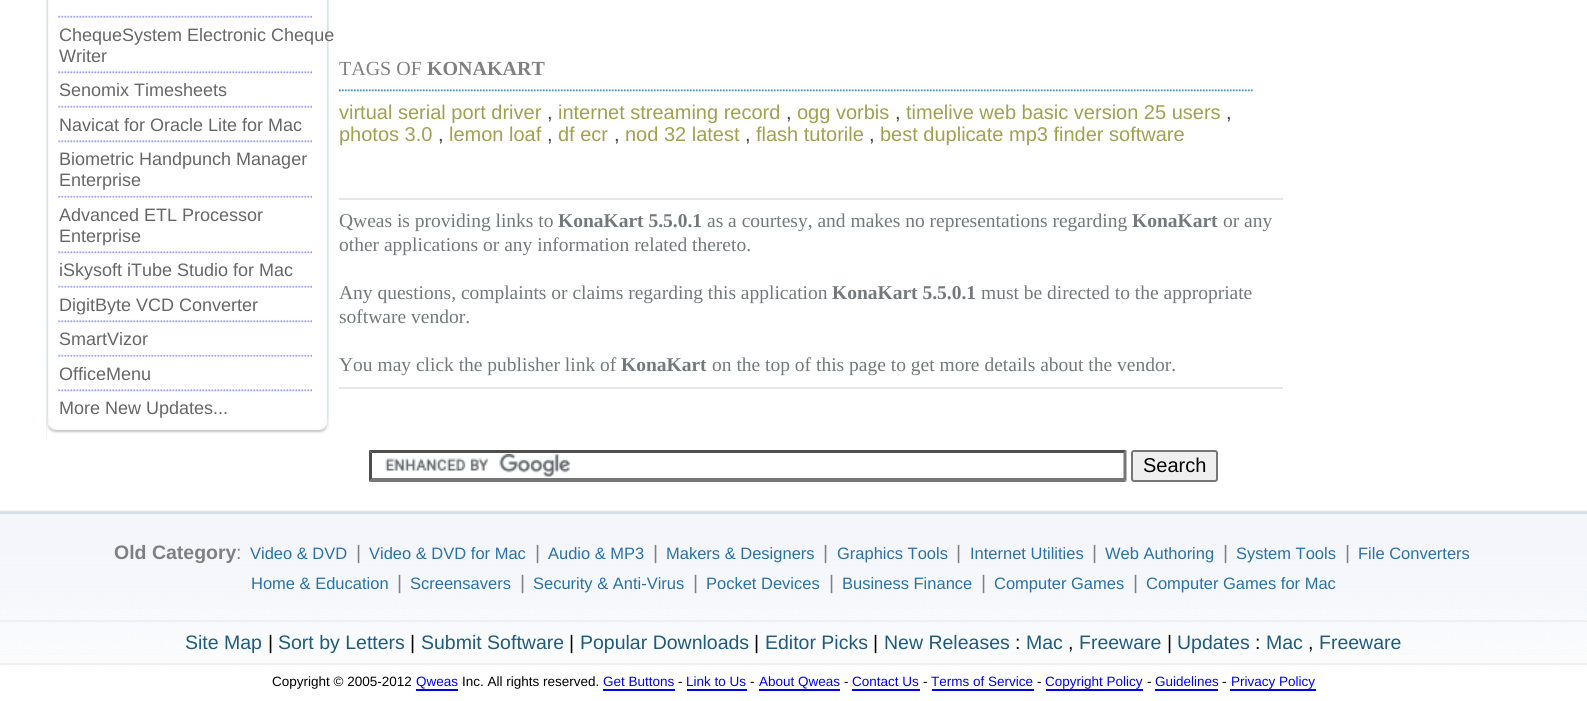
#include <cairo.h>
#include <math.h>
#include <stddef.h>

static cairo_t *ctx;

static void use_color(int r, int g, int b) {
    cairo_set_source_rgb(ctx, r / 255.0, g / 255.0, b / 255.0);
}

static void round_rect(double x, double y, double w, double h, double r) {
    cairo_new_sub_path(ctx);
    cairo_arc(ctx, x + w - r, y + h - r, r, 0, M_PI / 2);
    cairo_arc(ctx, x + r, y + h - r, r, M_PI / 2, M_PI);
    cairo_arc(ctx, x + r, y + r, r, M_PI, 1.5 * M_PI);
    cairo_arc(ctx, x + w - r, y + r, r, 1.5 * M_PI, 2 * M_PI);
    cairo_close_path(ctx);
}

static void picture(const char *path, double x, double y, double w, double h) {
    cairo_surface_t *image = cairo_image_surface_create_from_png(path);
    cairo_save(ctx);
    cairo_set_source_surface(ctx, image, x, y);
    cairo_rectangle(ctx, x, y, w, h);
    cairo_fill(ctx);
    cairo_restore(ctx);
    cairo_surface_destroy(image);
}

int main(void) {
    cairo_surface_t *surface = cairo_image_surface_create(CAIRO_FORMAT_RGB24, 1587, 701);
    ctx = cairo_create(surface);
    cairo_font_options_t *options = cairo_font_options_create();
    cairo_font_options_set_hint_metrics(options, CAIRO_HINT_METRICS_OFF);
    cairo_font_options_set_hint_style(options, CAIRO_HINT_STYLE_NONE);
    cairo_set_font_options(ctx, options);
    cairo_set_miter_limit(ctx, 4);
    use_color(255, 255, 255);
    cairo_paint(ctx);
    picture("img1.png", 46, 0, 283, 439);
    picture("img2.png", 58, 15, 254, 3);
    cairo_select_font_face(ctx, "Liberation Sans", CAIRO_FONT_SLANT_NORMAL, CAIRO_FONT_WEIGHT_NORMAL);
    cairo_set_font_size(ctx, 18);
    use_color(102, 102, 102);
    cairo_move_to(ctx, 59, 41);
    cairo_show_text(ctx, "ChequeSystem Electronic Cheque");
    cairo_move_to(ctx, 59, 62);
    cairo_show_text(ctx, "Writer");
    picture("img3.png", 58, 71, 254, 3);
    cairo_move_to(ctx, 59, 96);
    cairo_show_text(ctx, "Senomix Timesheets");
    picture("img2.png", 58, 105, 254, 3);
    cairo_move_to(ctx, 59, 131);
    cairo_show_text(ctx, "Navicat for Oracle Lite for Mac");
    picture("img3.png", 58, 140, 254, 3);
    cairo_move_to(ctx, 59, 165);
    cairo_show_text(ctx, "Biometric Handpunch Manager");
    cairo_move_to(ctx, 59, 186);
    cairo_show_text(ctx, "Enterprise");
    picture("img2.png", 58, 195, 254, 3);
    cairo_move_to(ctx, 59, 221);
    cairo_show_text(ctx, "Advanced ETL Processor");
    cairo_move_to(ctx, 59, 242);
    cairo_show_text(ctx, "Enterprise");
    picture("img4.png", 58, 245, 254, 9);
    cairo_move_to(ctx, 59, 276);
    cairo_show_text(ctx, "iSkysoft iTube Studio for Mac");
    picture("img2.png", 58, 285, 254, 3);
    cairo_move_to(ctx, 59, 311);
    cairo_show_text(ctx, "DigitByte VCD Converter");
    picture("img5.png", 58, 314, 254, 9);
    cairo_move_to(ctx, 59, 345);
    cairo_show_text(ctx, "SmartVizor");
    picture("img2.png", 58, 354, 254, 3);
    cairo_move_to(ctx, 59, 380);
    cairo_show_text(ctx, "OfficeMenu");
    picture("img3.png", 58, 389, 254, 3);
    cairo_move_to(ctx, 59, 414);
    cairo_show_text(ctx, "More New Updates...");
    picture("img6.png", 46, 418, 283, 21);
    cairo_select_font_face(ctx, "Liberation Serif", CAIRO_FONT_SLANT_NORMAL, CAIRO_FONT_WEIGHT_NORMAL);
    cairo_set_font_size(ctx, 20);
    use_color(128, 128, 128);
    cairo_move_to(ctx, 339, 75);
    cairo_show_text(ctx, "TAGS OF");
    cairo_select_font_face(ctx, "Liberation Serif", CAIRO_FONT_SLANT_NORMAL, CAIRO_FONT_WEIGHT_BOLD);
    cairo_move_to(ctx, 427, 75);
    cairo_show_text(ctx, "KONAKART");
    picture("img7.png", 339, 89, 914, 3);
    cairo_select_font_face(ctx, "Liberation Sans", CAIRO_FONT_SLANT_NORMAL, CAIRO_FONT_WEIGHT_NORMAL);
    use_color(160, 160, 80);
    cairo_move_to(ctx, 339, 119);
    cairo_show_text(ctx, "virtual serial port driver");
    use_color(64, 64, 64);
    cairo_move_to(ctx, 547, 119);
    cairo_show_text(ctx, ",");
    use_color(160, 160, 80);
    cairo_move_to(ctx, 558, 119);
    cairo_show_text(ctx, "internet streaming record");
    use_color(64, 64, 64);
    cairo_move_to(ctx, 786, 119);
    cairo_show_text(ctx, ",");
    use_color(160, 160, 80);
    cairo_move_to(ctx, 797, 119);
    cairo_show_text(ctx, "ogg vorbis");
    use_color(64, 64, 64);
    cairo_move_to(ctx, 895, 119);
    cairo_show_text(ctx, ",");
    use_color(160, 160, 80);
    cairo_move_to(ctx, 906, 119);
    cairo_show_text(ctx, "timelive web basic version 25 users");
    use_color(64, 64, 64);
    cairo_move_to(ctx, 1226, 119);
    cairo_show_text(ctx, ",");
    use_color(160, 160, 80);
    cairo_move_to(ctx, 339, 141);
    cairo_show_text(ctx, "photos 3.0");
    use_color(64, 64, 64);
    cairo_move_to(ctx, 438, 141);
    cairo_show_text(ctx, ",");
    use_color(160, 160, 80);
    cairo_move_to(ctx, 449, 141);
    cairo_show_text(ctx, "lemon loaf");
    use_color(64, 64, 64);
    cairo_move_to(ctx, 547, 141);
    cairo_show_text(ctx, ",");
    use_color(160, 160, 80);
    cairo_move_to(ctx, 558, 141);
    cairo_show_text(ctx, "df ecr");
    use_color(64, 64, 64);
    cairo_move_to(ctx, 614, 141);
    cairo_show_text(ctx, ",");
    use_color(160, 160, 80);
    cairo_move_to(ctx, 625, 141);
    cairo_show_text(ctx, "nod 32 latest");
    use_color(64, 64, 64);
    cairo_move_to(ctx, 745, 141);
    cairo_show_text(ctx, ",");
    use_color(160, 160, 80);
    cairo_move_to(ctx, 756, 141);
    cairo_show_text(ctx, "flash tutorile");
    use_color(64, 64, 64);
    cairo_move_to(ctx, 869, 141);
    cairo_show_text(ctx, ",");
    use_color(160, 160, 80);
    cairo_move_to(ctx, 880, 141);
    cairo_show_text(ctx, "best duplicate mp3 finder software");
    use_color(231, 231, 231);
    cairo_rectangle(ctx, 339, 198, 944, 2);
    cairo_fill(ctx);
    cairo_select_font_face(ctx, "Liberation Serif", CAIRO_FONT_SLANT_NORMAL, CAIRO_FONT_WEIGHT_NORMAL);
    cairo_set_font_size(ctx, 19.5);
    use_color(115, 121, 123);
    cairo_move_to(ctx, 339, 227);
    cairo_show_text(ctx, "Qweas is providing links to");
    cairo_select_font_face(ctx, "Liberation Serif", CAIRO_FONT_SLANT_NORMAL, CAIRO_FONT_WEIGHT_BOLD);
    cairo_move_to(ctx, 558, 227);
    cairo_show_text(ctx, "KonaKart 5.5.0.1");
    cairo_select_font_face(ctx, "Liberation Serif", CAIRO_FONT_SLANT_NORMAL, CAIRO_FONT_WEIGHT_NORMAL);
    cairo_move_to(ctx, 707, 227);
    cairo_show_text(ctx, "as a courtesy, and makes no representations regarding");
    cairo_select_font_face(ctx, "Liberation Serif", CAIRO_FONT_SLANT_NORMAL, CAIRO_FONT_WEIGHT_BOLD);
    cairo_move_to(ctx, 1132, 227);
    cairo_show_text(ctx, "KonaKart");
    cairo_select_font_face(ctx, "Liberation Serif", CAIRO_FONT_SLANT_NORMAL, CAIRO_FONT_WEIGHT_NORMAL);
    cairo_move_to(ctx, 1223, 227);
    cairo_show_text(ctx, "or any");
    cairo_move_to(ctx, 339, 251);
    cairo_show_text(ctx, "other applications or any information related thereto.");
    cairo_move_to(ctx, 339, 299);
    cairo_show_text(ctx, "Any questions, complaints or claims regarding this application");
    cairo_select_font_face(ctx, "Liberation Serif", CAIRO_FONT_SLANT_NORMAL, CAIRO_FONT_WEIGHT_BOLD);
    cairo_move_to(ctx, 832, 299);
    cairo_show_text(ctx, "KonaKart 5.5.0.1");
    cairo_select_font_face(ctx, "Liberation Serif", CAIRO_FONT_SLANT_NORMAL, CAIRO_FONT_WEIGHT_NORMAL);
    cairo_move_to(ctx, 981, 299);
    cairo_show_text(ctx, "must be directed to the appropriate");
    cairo_move_to(ctx, 339, 323);
    cairo_show_text(ctx, "software vendor.");
    cairo_move_to(ctx, 339, 371);
    cairo_show_text(ctx, "You may click the publisher link of");
    cairo_select_font_face(ctx, "Liberation Serif", CAIRO_FONT_SLANT_NORMAL, CAIRO_FONT_WEIGHT_BOLD);
    cairo_move_to(ctx, 621, 371);
    cairo_show_text(ctx, "KonaKart");
    cairo_select_font_face(ctx, "Liberation Serif", CAIRO_FONT_SLANT_NORMAL, CAIRO_FONT_WEIGHT_NORMAL);
    cairo_move_to(ctx, 712, 371);
    cairo_show_text(ctx, "on the top of this page to get more details about the vendor.");
    use_color(231, 231, 231);
    cairo_rectangle(ctx, 339, 387, 944, 2);
    cairo_fill(ctx);
    picture("img8.png", 385, 454, 185, 23);
    use_color(79, 79, 79);
    cairo_new_path(ctx);
    cairo_move_to(ctx, 369, 450);
    cairo_line_to(ctx, 1126, 450);
    cairo_line_to(ctx, 1124, 453);
    cairo_line_to(ctx, 372, 453);
    cairo_close_path(ctx);
    cairo_fill(ctx);
    use_color(118, 118, 118);
    cairo_new_path(ctx);
    cairo_move_to(ctx, 1126.5, 450);
    cairo_line_to(ctx, 1126.5, 481.5);
    cairo_line_to(ctx, 1123.5, 478.5);
    cairo_line_to(ctx, 1123.5, 453);
    cairo_close_path(ctx);
    cairo_fill(ctx);
    cairo_new_path(ctx);
    cairo_move_to(ctx, 1126, 482);
    cairo_line_to(ctx, 369, 482);
    cairo_line_to(ctx, 372, 478);
    cairo_line_to(ctx, 1124, 478);
    cairo_close_path(ctx);
    cairo_fill(ctx);
    use_color(79, 79, 79);
    cairo_new_path(ctx);
    cairo_move_to(ctx, 369, 481.5);
    cairo_line_to(ctx, 369, 450);
    cairo_line_to(ctx, 372, 453);
    cairo_line_to(ctx, 372, 478.5);
    cairo_close_path(ctx);
    cairo_fill(ctx);
    use_color(239, 239, 239);
    round_rect(1132, 451, 85, 30, 2);
    cairo_fill_preserve(ctx);
    use_color(118, 118, 118);
    cairo_stroke(ctx);
    cairo_select_font_face(ctx, "Liberation Sans", CAIRO_FONT_SLANT_NORMAL, CAIRO_FONT_WEIGHT_NORMAL);
    cairo_set_font_size(ctx, 20);
    use_color(0, 0, 0);
    cairo_move_to(ctx, 1143, 472);
    cairo_show_text(ctx, "Search");
    picture("img9.png", 0, 510, 1587, 157);
    cairo_select_font_face(ctx, "Liberation Sans", CAIRO_FONT_SLANT_NORMAL, CAIRO_FONT_WEIGHT_BOLD);
    cairo_set_font_size(ctx, 19.5);
    use_color(128, 128, 128);
    cairo_move_to(ctx, 114, 559);
    cairo_show_text(ctx, "Old Category");
    cairo_select_font_face(ctx, "Liberation Sans", CAIRO_FONT_SLANT_NORMAL, CAIRO_FONT_WEIGHT_NORMAL);
    cairo_move_to(ctx, 236, 559);
    cairo_show_text(ctx, ":");
    cairo_set_font_size(ctx, 16.5);
    use_color(41, 113, 167);
    cairo_move_to(ctx, 250, 559);
    cairo_show_text(ctx, "Video & DVD");
    cairo_set_font_size(ctx, 19.5);
    use_color(128, 128, 128);
    cairo_move_to(ctx, 356, 559);
    cairo_show_text(ctx, "|");
    cairo_set_font_size(ctx, 16.5);
    use_color(41, 113, 167);
    cairo_move_to(ctx, 369, 559);
    cairo_show_text(ctx, "Video & DVD for Mac");
    cairo_set_font_size(ctx, 19.5);
    use_color(128, 128, 128);
    cairo_move_to(ctx, 535, 559);
    cairo_show_text(ctx, "|");
    cairo_set_font_size(ctx, 16.5);
    use_color(41, 113, 167);
    cairo_move_to(ctx, 548, 559);
    cairo_show_text(ctx, "Audio & MP3");
    cairo_set_font_size(ctx, 19.5);
    use_color(128, 128, 128);
    cairo_move_to(ctx, 653, 559);
    cairo_show_text(ctx, "|");
    cairo_set_font_size(ctx, 16.5);
    use_color(41, 113, 167);
    cairo_move_to(ctx, 666, 559);
    cairo_show_text(ctx, "Makers & Designers");
    cairo_set_font_size(ctx, 19.5);
    use_color(128, 128, 128);
    cairo_move_to(ctx, 823, 559);
    cairo_show_text(ctx, "|");
    cairo_set_font_size(ctx, 16.5);
    use_color(41, 113, 167);
    cairo_move_to(ctx, 837, 559);
    cairo_show_text(ctx, "Graphics Tools");
    cairo_set_font_size(ctx, 19.5);
    use_color(128, 128, 128);
    cairo_move_to(ctx, 956, 559);
    cairo_show_text(ctx, "|");
    cairo_set_font_size(ctx, 16.5);
    use_color(41, 113, 167);
    cairo_move_to(ctx, 970, 559);
    cairo_show_text(ctx, "Internet Utilities");
    cairo_set_font_size(ctx, 19.5);
    use_color(128, 128, 128);
    cairo_move_to(ctx, 1092, 559);
    cairo_show_text(ctx, "|");
    cairo_set_font_size(ctx, 16.5);
    use_color(41, 113, 167);
    cairo_move_to(ctx, 1105, 559);
    cairo_show_text(ctx, "Web Authoring");
    cairo_set_font_size(ctx, 19.5);
    use_color(128, 128, 128);
    cairo_move_to(ctx, 1223, 559);
    cairo_show_text(ctx, "|");
    cairo_set_font_size(ctx, 16.5);
    use_color(41, 113, 167);
    cairo_move_to(ctx, 1236, 559);
    cairo_show_text(ctx, "System Tools");
    cairo_set_font_size(ctx, 19.5);
    use_color(128, 128, 128);
    cairo_move_to(ctx, 1345, 559);
    cairo_show_text(ctx, "|");
    cairo_set_font_size(ctx, 16.5);
    use_color(41, 113, 167);
    cairo_move_to(ctx, 1358, 559);
    cairo_show_text(ctx, "File Converters");
    cairo_move_to(ctx, 251, 589);
    cairo_show_text(ctx, "Home & Education");
    cairo_set_font_size(ctx, 19.5);
    use_color(128, 128, 128);
    cairo_move_to(ctx, 397, 589);
    cairo_show_text(ctx, "|");
    cairo_set_font_size(ctx, 16.5);
    use_color(41, 113, 167);
    cairo_move_to(ctx, 410, 589);
    cairo_show_text(ctx, "Screensavers");
    cairo_set_font_size(ctx, 19.5);
    use_color(128, 128, 128);
    cairo_move_to(ctx, 520, 589);
    cairo_show_text(ctx, "|");
    cairo_set_font_size(ctx, 16.5);
    use_color(41, 113, 167);
    cairo_move_to(ctx, 533, 589);
    cairo_show_text(ctx, "Security & Anti-Virus");
    cairo_set_font_size(ctx, 19.5);
    use_color(128, 128, 128);
    cairo_move_to(ctx, 693, 589);
    cairo_show_text(ctx, "|");
    cairo_set_font_size(ctx, 16.5);
    use_color(41, 113, 167);
    cairo_move_to(ctx, 706, 589);
    cairo_show_text(ctx, "Pocket Devices");
    cairo_set_font_size(ctx, 19.5);
    use_color(128, 128, 128);
    cairo_move_to(ctx, 829, 589);
    cairo_show_text(ctx, "|");
    cairo_set_font_size(ctx, 16.5);
    use_color(41, 113, 167);
    cairo_move_to(ctx, 842, 589);
    cairo_show_text(ctx, "Business Finance");
    cairo_set_font_size(ctx, 19.5);
    use_color(128, 128, 128);
    cairo_move_to(ctx, 981, 589);
    cairo_show_text(ctx, "|");
    cairo_set_font_size(ctx, 16.5);
    use_color(41, 113, 167);
    cairo_move_to(ctx, 994, 589);
    cairo_show_text(ctx, "Computer Games");
    cairo_set_font_size(ctx, 19.5);
    use_color(128, 128, 128);
    cairo_move_to(ctx, 1133, 589);
    cairo_show_text(ctx, "|");
    cairo_set_font_size(ctx, 16.5);
    use_color(41, 113, 167);
    cairo_move_to(ctx, 1146, 589);
    cairo_show_text(ctx, "Computer Games for Mac");
    use_color(240, 240, 240);
    cairo_rectangle(ctx, 0, 620, 1587, 2);
    cairo_fill(ctx);
    cairo_set_font_size(ctx, 19.5);
    use_color(30, 91, 126);
    cairo_move_to(ctx, 185, 649);
    cairo_show_text(ctx, "Site Map");
    use_color(0, 0, 0);
    cairo_move_to(ctx, 268, 649);
    cairo_show_text(ctx, "|");
    use_color(30, 91, 126);
    cairo_move_to(ctx, 278, 649);
    cairo_show_text(ctx, "Sort by Letters");
    use_color(0, 0, 0);
    cairo_move_to(ctx, 410, 649);
    cairo_show_text(ctx, "|");
    use_color(30, 91, 126);
    cairo_move_to(ctx, 421, 649);
    cairo_show_text(ctx, "Submit Software");
    use_color(0, 0, 0);
    cairo_move_to(ctx, 569, 649);
    cairo_show_text(ctx, "|");
    use_color(30, 91, 126);
    cairo_move_to(ctx, 580, 649);
    cairo_show_text(ctx, "Popular Downloads");
    use_color(0, 0, 0);
    cairo_move_to(ctx, 754, 649);
    cairo_show_text(ctx, "|");
    use_color(30, 91, 126);
    cairo_move_to(ctx, 765, 649);
    cairo_show_text(ctx, "Editor Picks");
    use_color(0, 0, 0);
    cairo_move_to(ctx, 873, 649);
    cairo_show_text(ctx, "|");
    use_color(30, 91, 126);
    cairo_move_to(ctx, 884, 649);
    cairo_show_text(ctx, "New Releases");
    use_color(0, 0, 0);
    cairo_move_to(ctx, 1015, 649);
    cairo_show_text(ctx, ":");
    use_color(30, 91, 126);
    cairo_move_to(ctx, 1026, 649);
    cairo_show_text(ctx, "Mac");
    use_color(0, 0, 0);
    cairo_move_to(ctx, 1068, 649);
    cairo_show_text(ctx, ",");
    use_color(30, 91, 126);
    cairo_move_to(ctx, 1079, 649);
    cairo_show_text(ctx, "Freeware");
    use_color(0, 0, 0);
    cairo_move_to(ctx, 1167, 649);
    cairo_show_text(ctx, "|");
    use_color(30, 91, 126);
    cairo_move_to(ctx, 1177, 649);
    cairo_show_text(ctx, "Updates");
    use_color(0, 0, 0);
    cairo_move_to(ctx, 1255, 649);
    cairo_show_text(ctx, ":");
    use_color(30, 91, 126);
    cairo_move_to(ctx, 1266, 649);
    cairo_show_text(ctx, "Mac");
    use_color(0, 0, 0);
    cairo_move_to(ctx, 1308, 649);
    cairo_show_text(ctx, ",");
    use_color(30, 91, 126);
    cairo_move_to(ctx, 1319, 649);
    cairo_show_text(ctx, "Freeware");
    use_color(240, 240, 240);
    cairo_rectangle(ctx, 0, 663, 1587, 2);
    cairo_fill(ctx);
    cairo_set_font_size(ctx, 13.5);
    use_color(0, 0, 0);
    cairo_move_to(ctx, 272, 686);
    cairo_show_text(ctx, "Copyright © 2005-2012");
    use_color(0, 0, 238);
    cairo_move_to(ctx, 416, 686);
    cairo_show_text(ctx, "Qweas");
    cairo_rectangle(ctx, 416, 689, 42, 2);
    cairo_fill(ctx);
    use_color(0, 0, 0);
    cairo_move_to(ctx, 462, 686);
    cairo_show_text(ctx, "Inc. All rights reserved.");
    use_color(0, 0, 238);
    cairo_move_to(ctx, 603, 686);
    cairo_show_text(ctx, "Get Buttons");
    cairo_rectangle(ctx, 603, 689, 72, 2);
    cairo_fill(ctx);
    use_color(0, 0, 0);
    cairo_move_to(ctx, 678, 686);
    cairo_show_text(ctx, "-");
    use_color(0, 0, 238);
    cairo_move_to(ctx, 686, 686);
    cairo_show_text(ctx, "Link to Us");
    cairo_rectangle(ctx, 687, 689, 60, 2);
    cairo_fill(ctx);
    use_color(0, 0, 0);
    cairo_move_to(ctx, 750, 686);
    cairo_show_text(ctx, "-");
    use_color(0, 0, 238);
    cairo_move_to(ctx, 759, 686);
    cairo_show_text(ctx, "About Qweas");
    cairo_rectangle(ctx, 759, 689, 81, 2);
    cairo_fill(ctx);
    use_color(0, 0, 0);
    cairo_move_to(ctx, 844, 686);
    cairo_show_text(ctx, "-");
    use_color(0, 0, 238);
    cairo_move_to(ctx, 852, 686);
    cairo_show_text(ctx, "Contact Us");
    cairo_rectangle(ctx, 852, 689, 68, 2);
    cairo_fill(ctx);
    use_color(0, 0, 0);
    cairo_move_to(ctx, 923, 686);
    cairo_show_text(ctx, "-");
    use_color(0, 0, 238);
    cairo_move_to(ctx, 931, 686);
    cairo_show_text(ctx, "Terms of Service");
    cairo_rectangle(ctx, 932, 689, 102, 2);
    cairo_fill(ctx);
    use_color(0, 0, 0);
    cairo_move_to(ctx, 1037, 686);
    cairo_show_text(ctx, "-");
    use_color(0, 0, 238);
    cairo_move_to(ctx, 1045, 686);
    cairo_show_text(ctx, "Copyright Policy");
    cairo_rectangle(ctx, 1046, 689, 97, 2);
    cairo_fill(ctx);
    use_color(0, 0, 0);
    cairo_move_to(ctx, 1147, 686);
    cairo_show_text(ctx, "-");
    use_color(0, 0, 238);
    cairo_move_to(ctx, 1155, 686);
    cairo_show_text(ctx, "Guidelines");
    cairo_rectangle(ctx, 1155, 689, 63, 2);
    cairo_fill(ctx);
    use_color(0, 0, 0);
    cairo_move_to(ctx, 1222, 686);
    cairo_show_text(ctx, "-");
    use_color(0, 0, 238);
    cairo_move_to(ctx, 1231, 686);
    cairo_show_text(ctx, "Privacy Policy");
    cairo_rectangle(ctx, 1230, 689, 86, 2);
    cairo_fill(ctx);
    cairo_surface_write_to_png(surface, "result.png");
    cairo_font_options_destroy(options);
    cairo_destroy(ctx);
    cairo_surface_destroy(surface);
    return 0;
}
